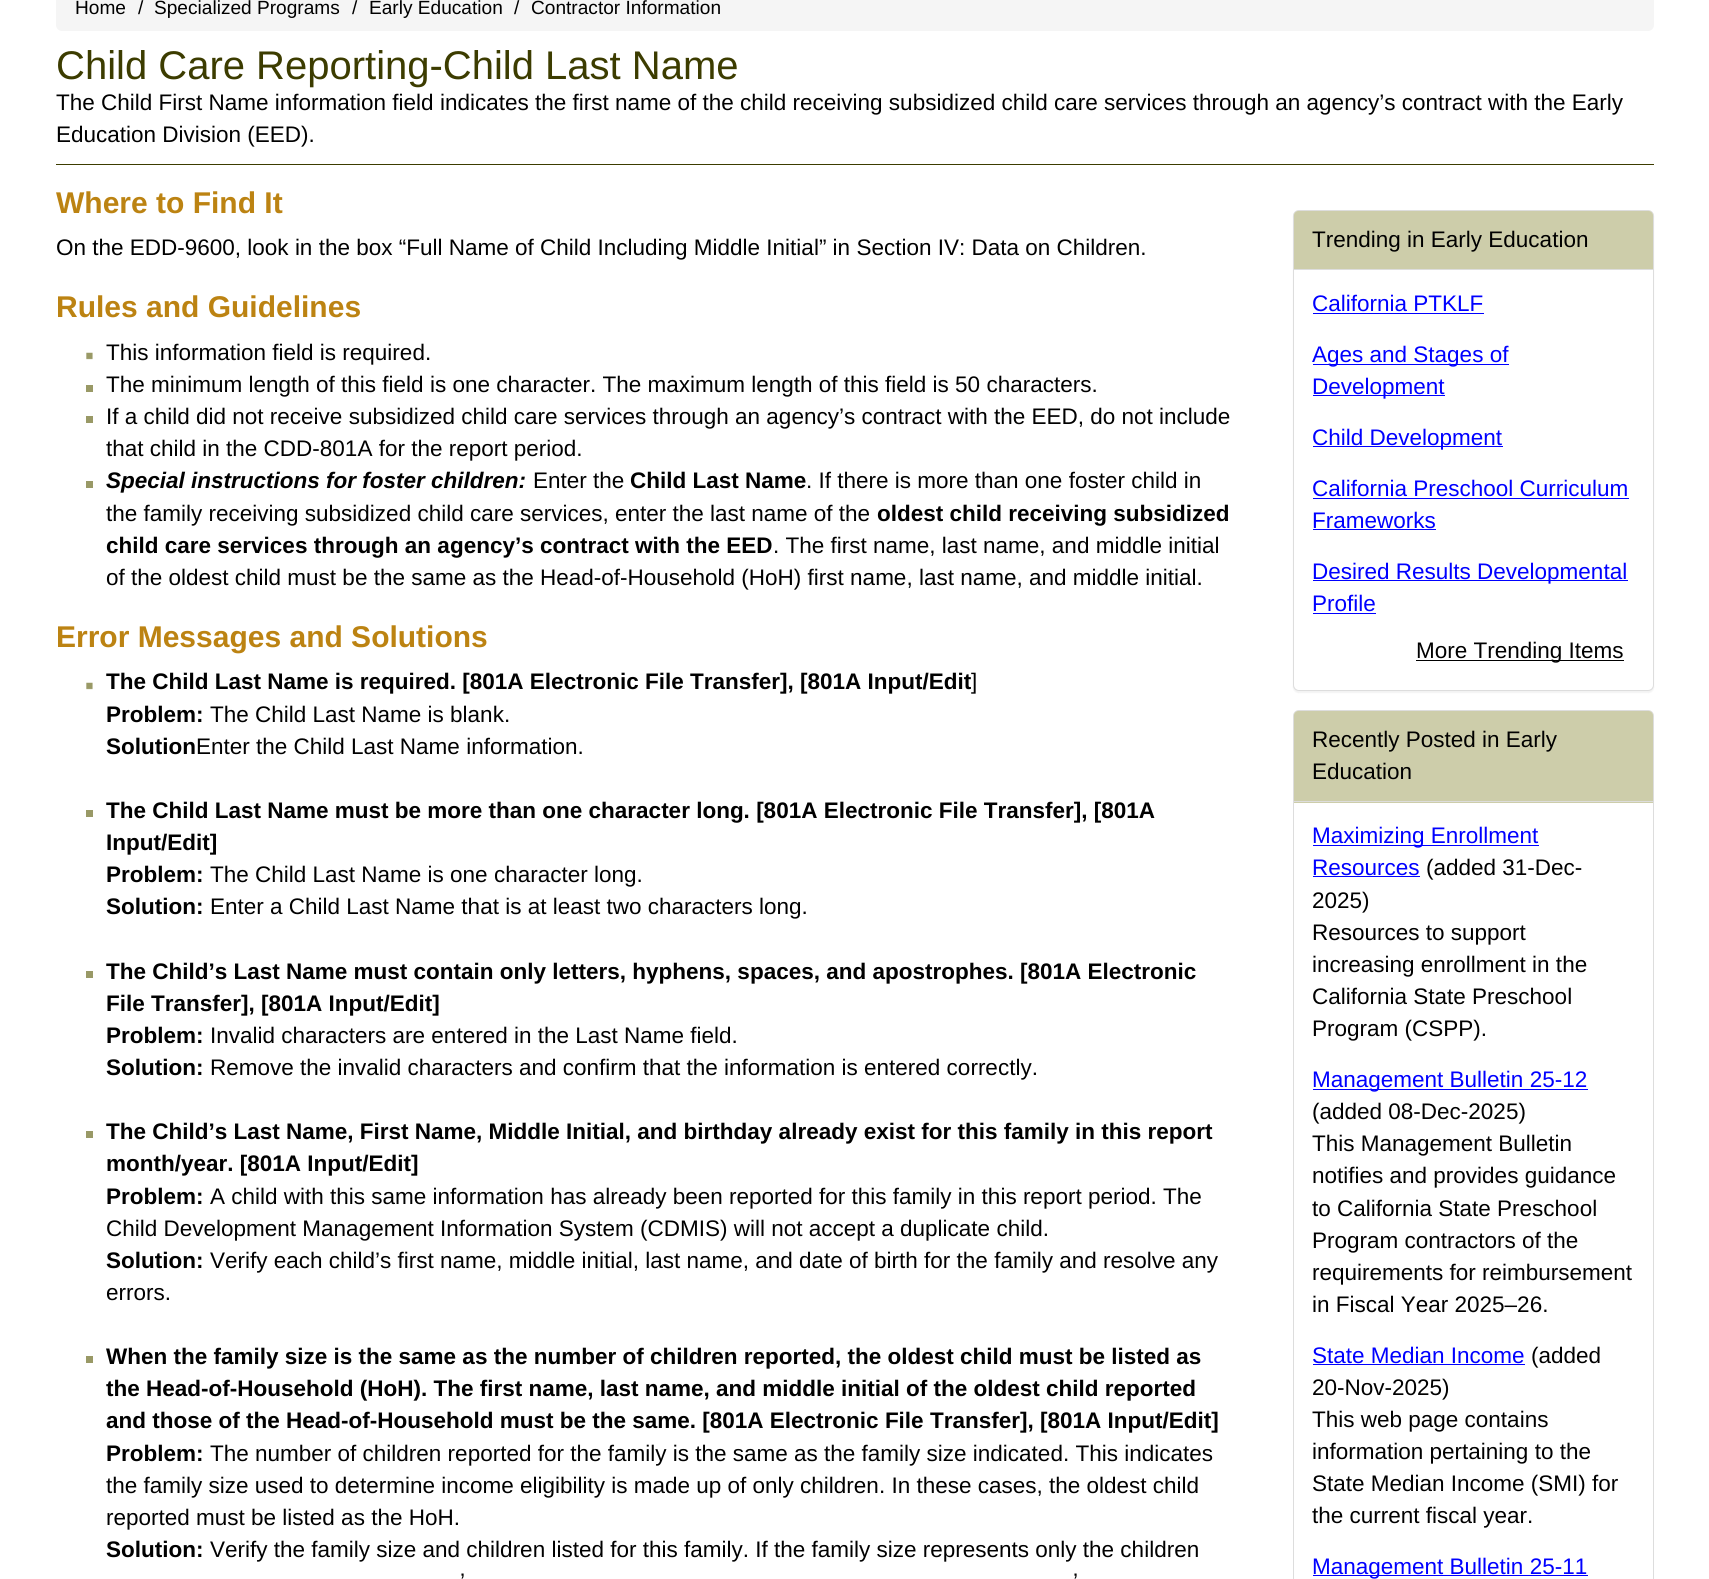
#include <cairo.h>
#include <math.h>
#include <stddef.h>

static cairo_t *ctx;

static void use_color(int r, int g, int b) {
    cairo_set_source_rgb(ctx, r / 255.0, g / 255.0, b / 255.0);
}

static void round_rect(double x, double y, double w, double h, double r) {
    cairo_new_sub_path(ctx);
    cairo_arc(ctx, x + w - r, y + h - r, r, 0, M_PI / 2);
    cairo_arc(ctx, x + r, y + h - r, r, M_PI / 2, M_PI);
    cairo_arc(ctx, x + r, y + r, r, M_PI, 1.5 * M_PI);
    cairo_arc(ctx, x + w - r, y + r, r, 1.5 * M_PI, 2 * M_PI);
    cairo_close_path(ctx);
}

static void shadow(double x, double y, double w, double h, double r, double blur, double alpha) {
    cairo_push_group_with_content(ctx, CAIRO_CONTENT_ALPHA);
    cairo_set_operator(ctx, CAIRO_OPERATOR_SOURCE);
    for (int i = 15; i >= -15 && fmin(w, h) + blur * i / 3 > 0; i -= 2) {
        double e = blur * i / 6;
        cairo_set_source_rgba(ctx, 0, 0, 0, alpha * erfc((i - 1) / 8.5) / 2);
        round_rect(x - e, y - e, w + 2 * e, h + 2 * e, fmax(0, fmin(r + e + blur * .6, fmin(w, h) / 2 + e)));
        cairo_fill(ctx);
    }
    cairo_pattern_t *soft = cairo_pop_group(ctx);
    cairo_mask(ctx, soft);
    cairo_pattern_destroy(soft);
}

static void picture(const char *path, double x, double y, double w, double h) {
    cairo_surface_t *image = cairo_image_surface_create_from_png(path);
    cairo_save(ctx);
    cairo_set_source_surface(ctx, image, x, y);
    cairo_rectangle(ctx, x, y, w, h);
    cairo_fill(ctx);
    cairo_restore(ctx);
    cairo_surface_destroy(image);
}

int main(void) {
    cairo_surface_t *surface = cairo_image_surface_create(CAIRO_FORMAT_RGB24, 1709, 1579);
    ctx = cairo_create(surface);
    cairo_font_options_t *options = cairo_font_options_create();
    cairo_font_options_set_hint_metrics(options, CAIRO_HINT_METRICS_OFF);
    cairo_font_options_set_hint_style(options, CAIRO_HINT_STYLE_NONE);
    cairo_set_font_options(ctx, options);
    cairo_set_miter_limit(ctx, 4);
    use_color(255, 255, 255);
    cairo_paint(ctx);
    use_color(245, 245, 245);
    round_rect(56, -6, 1598, 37, 6);
    cairo_fill(ctx);
    cairo_select_font_face(ctx, "Liberation Sans", CAIRO_FONT_SLANT_NORMAL, CAIRO_FONT_WEIGHT_NORMAL);
    cairo_set_font_size(ctx, 19.1);
    use_color(0, 0, 0);
    cairo_move_to(ctx, 75, 14);
    cairo_show_text(ctx, "Home");
    cairo_move_to(ctx, 138, 14);
    cairo_show_text(ctx, "/");
    cairo_move_to(ctx, 154, 14);
    cairo_show_text(ctx, "Specialized Programs");
    cairo_move_to(ctx, 352, 14);
    cairo_show_text(ctx, "/");
    cairo_move_to(ctx, 369, 14);
    cairo_show_text(ctx, "Early Education");
    cairo_move_to(ctx, 514, 14);
    cairo_show_text(ctx, "/");
    cairo_move_to(ctx, 531, 14);
    cairo_show_text(ctx, "Contractor Information");
    cairo_set_font_size(ctx, 40);
    use_color(60, 60, 0);
    cairo_move_to(ctx, 56, 79);
    cairo_show_text(ctx, "Child Care Reporting-Child Last Name");
    cairo_set_font_size(ctx, 22.5);
    use_color(0, 0, 0);
    cairo_move_to(ctx, 56, 110);
    cairo_show_text(ctx, "The Child First Name information field indicates the first name of the child receiving subsidized child care services through an agency’s contract with the Early");
    cairo_move_to(ctx, 56, 142);
    cairo_show_text(ctx, "Education Division (EED).");
    use_color(60, 60, 0);
    cairo_rectangle(ctx, 56, 164, 1598, 1);
    cairo_fill(ctx);
    cairo_select_font_face(ctx, "Liberation Sans", CAIRO_FONT_SLANT_NORMAL, CAIRO_FONT_WEIGHT_BOLD);
    cairo_set_font_size(ctx, 30);
    use_color(188, 131, 18);
    cairo_move_to(ctx, 56, 213);
    cairo_show_text(ctx, "Where to Find It");
    cairo_select_font_face(ctx, "Liberation Sans", CAIRO_FONT_SLANT_NORMAL, CAIRO_FONT_WEIGHT_NORMAL);
    cairo_set_font_size(ctx, 22.5);
    use_color(0, 0, 0);
    cairo_move_to(ctx, 56, 255);
    cairo_show_text(ctx, "On the EDD-9600, look in the box “Full Name of Child Including Middle Initial” in Section IV: Data on Children.");
    cairo_select_font_face(ctx, "Liberation Sans", CAIRO_FONT_SLANT_NORMAL, CAIRO_FONT_WEIGHT_BOLD);
    cairo_set_font_size(ctx, 30);
    use_color(188, 131, 18);
    cairo_move_to(ctx, 56, 317);
    cairo_show_text(ctx, "Rules and Guidelines");
    picture("img1.png", 86, 352, 7, 8);
    cairo_select_font_face(ctx, "Liberation Sans", CAIRO_FONT_SLANT_NORMAL, CAIRO_FONT_WEIGHT_NORMAL);
    cairo_set_font_size(ctx, 22.5);
    use_color(0, 0, 0);
    cairo_move_to(ctx, 106, 360);
    cairo_show_text(ctx, "This information field is required.");
    use_color(153, 153, 102);
    cairo_rectangle(ctx, 86, 385, 7, 7);
    cairo_fill(ctx);
    use_color(0, 0, 0);
    cairo_move_to(ctx, 106, 392);
    cairo_show_text(ctx, "The minimum length of this field is one character. The maximum length of this field is 50 characters.");
    use_color(153, 153, 102);
    cairo_rectangle(ctx, 86, 416, 7, 7);
    cairo_fill(ctx);
    use_color(0, 0, 0);
    cairo_move_to(ctx, 106, 424);
    cairo_show_text(ctx, "If a child did not receive subsidized child care services through an agency’s contract with the EED, do not include");
    cairo_move_to(ctx, 106, 456);
    cairo_show_text(ctx, "that child in the CDD-801A for the report period.");
    use_color(153, 153, 102);
    cairo_rectangle(ctx, 86, 481, 7, 7);
    cairo_fill(ctx);
    cairo_select_font_face(ctx, "Liberation Sans", CAIRO_FONT_SLANT_ITALIC, CAIRO_FONT_WEIGHT_BOLD);
    use_color(0, 0, 0);
    cairo_move_to(ctx, 106, 488);
    cairo_show_text(ctx, "Special instructions for foster children:");
    cairo_select_font_face(ctx, "Liberation Sans", CAIRO_FONT_SLANT_NORMAL, CAIRO_FONT_WEIGHT_NORMAL);
    cairo_move_to(ctx, 533, 488);
    cairo_show_text(ctx, "Enter the");
    cairo_select_font_face(ctx, "Liberation Sans", CAIRO_FONT_SLANT_NORMAL, CAIRO_FONT_WEIGHT_BOLD);
    cairo_move_to(ctx, 630, 488);
    cairo_show_text(ctx, "Child Last Name");
    cairo_select_font_face(ctx, "Liberation Sans", CAIRO_FONT_SLANT_NORMAL, CAIRO_FONT_WEIGHT_NORMAL);
    cairo_move_to(ctx, 806, 488);
    cairo_show_text(ctx, ". If there is more than one foster child in");
    cairo_move_to(ctx, 106, 521);
    cairo_show_text(ctx, "the family receiving subsidized child care services, enter the last name of the");
    cairo_select_font_face(ctx, "Liberation Sans", CAIRO_FONT_SLANT_NORMAL, CAIRO_FONT_WEIGHT_BOLD);
    cairo_move_to(ctx, 877, 521);
    cairo_show_text(ctx, "oldest child receiving subsidized");
    cairo_move_to(ctx, 106, 553);
    cairo_show_text(ctx, "child care services through an agency’s contract with the EED");
    cairo_select_font_face(ctx, "Liberation Sans", CAIRO_FONT_SLANT_NORMAL, CAIRO_FONT_WEIGHT_NORMAL);
    cairo_move_to(ctx, 773, 553);
    cairo_show_text(ctx, ". The first name, last name, and middle initial");
    cairo_move_to(ctx, 106, 585);
    cairo_show_text(ctx, "of the oldest child must be the same as the Head-of-Household (HoH) first name, last name, and middle initial.");
    cairo_select_font_face(ctx, "Liberation Sans", CAIRO_FONT_SLANT_NORMAL, CAIRO_FONT_WEIGHT_BOLD);
    cairo_set_font_size(ctx, 30);
    use_color(188, 131, 18);
    cairo_move_to(ctx, 56, 647);
    cairo_show_text(ctx, "Error Messages and Solutions");
    picture("img1.png", 86, 682, 7, 8);
    cairo_set_font_size(ctx, 22.5);
    use_color(0, 0, 0);
    cairo_move_to(ctx, 106, 689);
    cairo_show_text(ctx, "The Child Last Name is required. [801A Electronic File Transfer], [801A Input/Edit");
    cairo_select_font_face(ctx, "Liberation Sans", CAIRO_FONT_SLANT_NORMAL, CAIRO_FONT_WEIGHT_NORMAL);
    cairo_move_to(ctx, 971, 689);
    cairo_show_text(ctx, "]");
    cairo_select_font_face(ctx, "Liberation Sans", CAIRO_FONT_SLANT_NORMAL, CAIRO_FONT_WEIGHT_BOLD);
    cairo_move_to(ctx, 106, 722);
    cairo_show_text(ctx, "Problem:");
    cairo_select_font_face(ctx, "Liberation Sans", CAIRO_FONT_SLANT_NORMAL, CAIRO_FONT_WEIGHT_NORMAL);
    cairo_move_to(ctx, 210, 722);
    cairo_show_text(ctx, "The Child Last Name is blank.");
    cairo_select_font_face(ctx, "Liberation Sans", CAIRO_FONT_SLANT_NORMAL, CAIRO_FONT_WEIGHT_BOLD);
    cairo_move_to(ctx, 106, 754);
    cairo_show_text(ctx, "Solution");
    cairo_select_font_face(ctx, "Liberation Sans", CAIRO_FONT_SLANT_NORMAL, CAIRO_FONT_WEIGHT_NORMAL);
    cairo_move_to(ctx, 196, 754);
    cairo_show_text(ctx, "Enter the Child Last Name information.");
    use_color(153, 153, 102);
    cairo_rectangle(ctx, 86, 810, 7, 7);
    cairo_fill(ctx);
    cairo_select_font_face(ctx, "Liberation Sans", CAIRO_FONT_SLANT_NORMAL, CAIRO_FONT_WEIGHT_BOLD);
    use_color(0, 0, 0);
    cairo_move_to(ctx, 106, 818);
    cairo_show_text(ctx, "The Child Last Name must be more than one character long. [801A Electronic File Transfer], [801A");
    cairo_move_to(ctx, 106, 850);
    cairo_show_text(ctx, "Input/Edit]");
    cairo_move_to(ctx, 106, 882);
    cairo_show_text(ctx, "Problem:");
    cairo_select_font_face(ctx, "Liberation Sans", CAIRO_FONT_SLANT_NORMAL, CAIRO_FONT_WEIGHT_NORMAL);
    cairo_move_to(ctx, 210, 882);
    cairo_show_text(ctx, "The Child Last Name is one character long.");
    cairo_select_font_face(ctx, "Liberation Sans", CAIRO_FONT_SLANT_NORMAL, CAIRO_FONT_WEIGHT_BOLD);
    cairo_move_to(ctx, 106, 914);
    cairo_show_text(ctx, "Solution:");
    cairo_select_font_face(ctx, "Liberation Sans", CAIRO_FONT_SLANT_NORMAL, CAIRO_FONT_WEIGHT_NORMAL);
    cairo_move_to(ctx, 210, 914);
    cairo_show_text(ctx, "Enter a Child Last Name that is at least two characters long.");
    use_color(153, 153, 102);
    cairo_rectangle(ctx, 86, 971, 7, 7);
    cairo_fill(ctx);
    cairo_select_font_face(ctx, "Liberation Sans", CAIRO_FONT_SLANT_NORMAL, CAIRO_FONT_WEIGHT_BOLD);
    use_color(0, 0, 0);
    cairo_move_to(ctx, 106, 979);
    cairo_show_text(ctx, "The Child’s Last Name must contain only letters, hyphens, spaces, and apostrophes. [801A Electronic");
    cairo_move_to(ctx, 106, 1011);
    cairo_show_text(ctx, "File Transfer], [801A Input/Edit]");
    cairo_move_to(ctx, 106, 1043);
    cairo_show_text(ctx, "Problem:");
    cairo_select_font_face(ctx, "Liberation Sans", CAIRO_FONT_SLANT_NORMAL, CAIRO_FONT_WEIGHT_NORMAL);
    cairo_move_to(ctx, 210, 1043);
    cairo_show_text(ctx, "Invalid characters are entered in the Last Name field.");
    cairo_select_font_face(ctx, "Liberation Sans", CAIRO_FONT_SLANT_NORMAL, CAIRO_FONT_WEIGHT_BOLD);
    cairo_move_to(ctx, 106, 1075);
    cairo_show_text(ctx, "Solution:");
    cairo_select_font_face(ctx, "Liberation Sans", CAIRO_FONT_SLANT_NORMAL, CAIRO_FONT_WEIGHT_NORMAL);
    cairo_move_to(ctx, 210, 1075);
    cairo_show_text(ctx, "Remove the invalid characters and confirm that the information is entered correctly.");
    use_color(153, 153, 102);
    cairo_rectangle(ctx, 86, 1131, 7, 7);
    cairo_fill(ctx);
    cairo_select_font_face(ctx, "Liberation Sans", CAIRO_FONT_SLANT_NORMAL, CAIRO_FONT_WEIGHT_BOLD);
    use_color(0, 0, 0);
    cairo_move_to(ctx, 106, 1139);
    cairo_show_text(ctx, "The Child’s Last Name, First Name, Middle Initial, and birthday already exist for this family in this report");
    cairo_move_to(ctx, 106, 1171);
    cairo_show_text(ctx, "month/year. [801A Input/Edit]");
    cairo_move_to(ctx, 106, 1204);
    cairo_show_text(ctx, "Problem:");
    cairo_select_font_face(ctx, "Liberation Sans", CAIRO_FONT_SLANT_NORMAL, CAIRO_FONT_WEIGHT_NORMAL);
    cairo_move_to(ctx, 210, 1204);
    cairo_show_text(ctx, "A child with this same information has already been reported for this family in this report period. The");
    cairo_move_to(ctx, 106, 1236);
    cairo_show_text(ctx, "Child Development Management Information System (CDMIS) will not accept a duplicate child.");
    cairo_select_font_face(ctx, "Liberation Sans", CAIRO_FONT_SLANT_NORMAL, CAIRO_FONT_WEIGHT_BOLD);
    cairo_move_to(ctx, 106, 1268);
    cairo_show_text(ctx, "Solution:");
    cairo_select_font_face(ctx, "Liberation Sans", CAIRO_FONT_SLANT_NORMAL, CAIRO_FONT_WEIGHT_NORMAL);
    cairo_move_to(ctx, 210, 1268);
    cairo_show_text(ctx, "Verify each child’s first name, middle initial, last name, and date of birth for the family and resolve any");
    cairo_move_to(ctx, 106, 1300);
    cairo_show_text(ctx, "errors.");
    use_color(153, 153, 102);
    cairo_rectangle(ctx, 86, 1356, 7, 7);
    cairo_fill(ctx);
    cairo_select_font_face(ctx, "Liberation Sans", CAIRO_FONT_SLANT_NORMAL, CAIRO_FONT_WEIGHT_BOLD);
    use_color(0, 0, 0);
    cairo_move_to(ctx, 106, 1364);
    cairo_show_text(ctx, "When the family size is the same as the number of children reported, the oldest child must be listed as");
    cairo_move_to(ctx, 106, 1396);
    cairo_show_text(ctx, "the Head-of-Household (HoH). The first name, last name, and middle initial of the oldest child reported");
    cairo_move_to(ctx, 106, 1428);
    cairo_show_text(ctx, "and those of the Head-of-Household must be the same. [801A Electronic File Transfer], [801A Input/Edit]");
    cairo_move_to(ctx, 106, 1461);
    cairo_show_text(ctx, "Problem:");
    cairo_select_font_face(ctx, "Liberation Sans", CAIRO_FONT_SLANT_NORMAL, CAIRO_FONT_WEIGHT_NORMAL);
    cairo_move_to(ctx, 210, 1461);
    cairo_show_text(ctx, "The number of children reported for the family is the same as the family size indicated. This indicates");
    cairo_move_to(ctx, 106, 1493);
    cairo_show_text(ctx, "the family size used to determine income eligibility is made up of only children. In these cases, the oldest child");
    cairo_move_to(ctx, 106, 1525);
    cairo_show_text(ctx, "reported must be listed as the HoH.");
    cairo_select_font_face(ctx, "Liberation Sans", CAIRO_FONT_SLANT_NORMAL, CAIRO_FONT_WEIGHT_BOLD);
    cairo_move_to(ctx, 106, 1557);
    cairo_show_text(ctx, "Solution:");
    cairo_select_font_face(ctx, "Liberation Sans", CAIRO_FONT_SLANT_NORMAL, CAIRO_FONT_WEIGHT_NORMAL);
    cairo_move_to(ctx, 210, 1557);
    cairo_show_text(ctx, "Verify the family size and children listed for this family. If the family size represents only the children");
    cairo_move_to(ctx, 460, 1589);
    cairo_show_text(ctx, "’");
    cairo_move_to(ctx, 1073, 1589);
    cairo_show_text(ctx, "’");
    use_color(0, 0, 0);
    shadow(1293, 211, 361, 482, 6, 0.5, 0.05);
    use_color(255, 255, 255);
    round_rect(1293.5, 210.5, 360, 480, 5.5);
    cairo_fill_preserve(ctx);
    use_color(221, 221, 221);
    cairo_set_line_width(ctx, 1);
    cairo_stroke(ctx);
    use_color(205, 205, 170);
    cairo_new_path(ctx);
    cairo_move_to(ctx, 1298, 211);
    cairo_line_to(ctx, 1649, 211);
    cairo_curve_to(ctx, 1651, 211, 1653, 213, 1653, 215);
    cairo_line_to(ctx, 1653, 270);
    cairo_line_to(ctx, 1294, 270);
    cairo_line_to(ctx, 1294, 215);
    cairo_curve_to(ctx, 1294, 213, 1296, 211, 1298, 211);
    cairo_close_path(ctx);
    cairo_fill(ctx);
    use_color(221, 221, 221);
    cairo_rectangle(ctx, 1294, 269, 359, 1);
    cairo_fill(ctx);
    use_color(0, 0, 0);
    cairo_move_to(ctx, 1312, 247);
    cairo_show_text(ctx, "Trending in Early Education");
    use_color(0, 0, 255);
    cairo_move_to(ctx, 1312, 311);
    cairo_show_text(ctx, "California PTKLF");
    cairo_rectangle(ctx, 1313, 313, 171, 1);
    cairo_fill(ctx);
    cairo_rectangle(ctx, 1313, 364, 196, 1);
    cairo_fill(ctx);
    cairo_move_to(ctx, 1312, 362);
    cairo_show_text(ctx, "Ages and Stages of");
    cairo_rectangle(ctx, 1313, 395, 132, 1);
    cairo_fill(ctx);
    cairo_move_to(ctx, 1312, 394);
    cairo_show_text(ctx, "Development");
    cairo_rectangle(ctx, 1313, 446, 190, 1);
    cairo_fill(ctx);
    cairo_move_to(ctx, 1312, 445);
    cairo_show_text(ctx, "Child Development");
    cairo_move_to(ctx, 1312, 496);
    cairo_show_text(ctx, "California Preschool Curriculum");
    cairo_rectangle(ctx, 1313, 498, 316, 1);
    cairo_fill(ctx);
    cairo_move_to(ctx, 1312, 528);
    cairo_show_text(ctx, "Frameworks");
    cairo_rectangle(ctx, 1313, 529, 123, 1);
    cairo_fill(ctx);
    cairo_rectangle(ctx, 1313, 580, 315, 1);
    cairo_fill(ctx);
    cairo_move_to(ctx, 1312, 579);
    cairo_show_text(ctx, "Desired Results Developmental");
    cairo_move_to(ctx, 1312, 611);
    cairo_show_text(ctx, "Profile");
    cairo_rectangle(ctx, 1313, 613, 63, 1);
    cairo_fill(ctx);
    use_color(0, 0, 0);
    cairo_rectangle(ctx, 1416, 660, 208, 1);
    cairo_fill(ctx);
    cairo_move_to(ctx, 1416, 658);
    cairo_show_text(ctx, "More Trending Items");
    round_rect(1293.5, 710.5, 360, 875, 5.5);
    use_color(221, 221, 221);
    cairo_stroke(ctx);
    use_color(205, 205, 170);
    cairo_new_path(ctx);
    cairo_move_to(ctx, 1298, 711);
    cairo_line_to(ctx, 1649, 711);
    cairo_curve_to(ctx, 1651, 711, 1653, 713, 1653, 715);
    cairo_line_to(ctx, 1653, 803);
    cairo_line_to(ctx, 1294, 803);
    cairo_line_to(ctx, 1294, 715);
    cairo_curve_to(ctx, 1294, 713, 1296, 711, 1298, 711);
    cairo_close_path(ctx);
    cairo_fill(ctx);
    use_color(221, 221, 221);
    cairo_rectangle(ctx, 1294, 801, 359, 1);
    cairo_fill(ctx);
    use_color(0, 0, 0);
    cairo_move_to(ctx, 1312, 747);
    cairo_show_text(ctx, "Recently Posted in Early");
    cairo_move_to(ctx, 1312, 779);
    cairo_show_text(ctx, "Education");
    use_color(0, 0, 255);
    cairo_rectangle(ctx, 1313, 845, 226, 1);
    cairo_fill(ctx);
    cairo_move_to(ctx, 1312, 843);
    cairo_show_text(ctx, "Maximizing Enrollment");
    cairo_move_to(ctx, 1312, 875);
    cairo_show_text(ctx, "Resources");
    cairo_rectangle(ctx, 1313, 876, 107, 1);
    cairo_fill(ctx);
    use_color(0, 0, 0);
    cairo_move_to(ctx, 1426, 875);
    cairo_show_text(ctx, "(added 31-Dec-");
    cairo_move_to(ctx, 1312, 908);
    cairo_show_text(ctx, "2025)");
    cairo_move_to(ctx, 1312, 940);
    cairo_show_text(ctx, "Resources to support");
    cairo_move_to(ctx, 1312, 972);
    cairo_show_text(ctx, "increasing enrollment in the");
    cairo_move_to(ctx, 1312, 1004);
    cairo_show_text(ctx, "California State Preschool");
    cairo_move_to(ctx, 1312, 1036);
    cairo_show_text(ctx, "Program (CSPP).");
    use_color(0, 0, 255);
    cairo_rectangle(ctx, 1313, 1089, 275, 1);
    cairo_fill(ctx);
    cairo_move_to(ctx, 1312, 1087);
    cairo_show_text(ctx, "Management Bulletin 25-12");
    use_color(0, 0, 0);
    cairo_move_to(ctx, 1312, 1119);
    cairo_show_text(ctx, "(added 08-Dec-2025)");
    cairo_move_to(ctx, 1312, 1151);
    cairo_show_text(ctx, "This Management Bulletin");
    cairo_move_to(ctx, 1312, 1183);
    cairo_show_text(ctx, "notifies and provides guidance");
    cairo_move_to(ctx, 1312, 1216);
    cairo_show_text(ctx, "to California State Preschool");
    cairo_move_to(ctx, 1312, 1248);
    cairo_show_text(ctx, "Program contractors of the");
    cairo_move_to(ctx, 1312, 1280);
    cairo_show_text(ctx, "requirements for reimbursement");
    cairo_move_to(ctx, 1312, 1312);
    cairo_show_text(ctx, "in Fiscal Year 2025–26.");
    use_color(0, 0, 255);
    cairo_move_to(ctx, 1312, 1363);
    cairo_show_text(ctx, "State Median Income");
    cairo_rectangle(ctx, 1313, 1364, 212, 1);
    cairo_fill(ctx);
    use_color(0, 0, 0);
    cairo_move_to(ctx, 1531, 1363);
    cairo_show_text(ctx, "(added");
    cairo_move_to(ctx, 1312, 1395);
    cairo_show_text(ctx, "20-Nov-2025)");
    cairo_move_to(ctx, 1312, 1427);
    cairo_show_text(ctx, "This web page contains");
    cairo_move_to(ctx, 1312, 1459);
    cairo_show_text(ctx, "information pertaining to the");
    cairo_move_to(ctx, 1312, 1491);
    cairo_show_text(ctx, "State Median Income (SMI) for");
    cairo_move_to(ctx, 1312, 1523);
    cairo_show_text(ctx, "the current fiscal year.");
    use_color(0, 0, 255);
    cairo_rectangle(ctx, 1313, 1575, 275, 1);
    cairo_fill(ctx);
    cairo_move_to(ctx, 1312, 1574);
    cairo_show_text(ctx, "Management Bulletin 25-11");
    cairo_surface_write_to_png(surface, "result.png");
    cairo_font_options_destroy(options);
    cairo_destroy(ctx);
    cairo_surface_destroy(surface);
    return 0;
}
